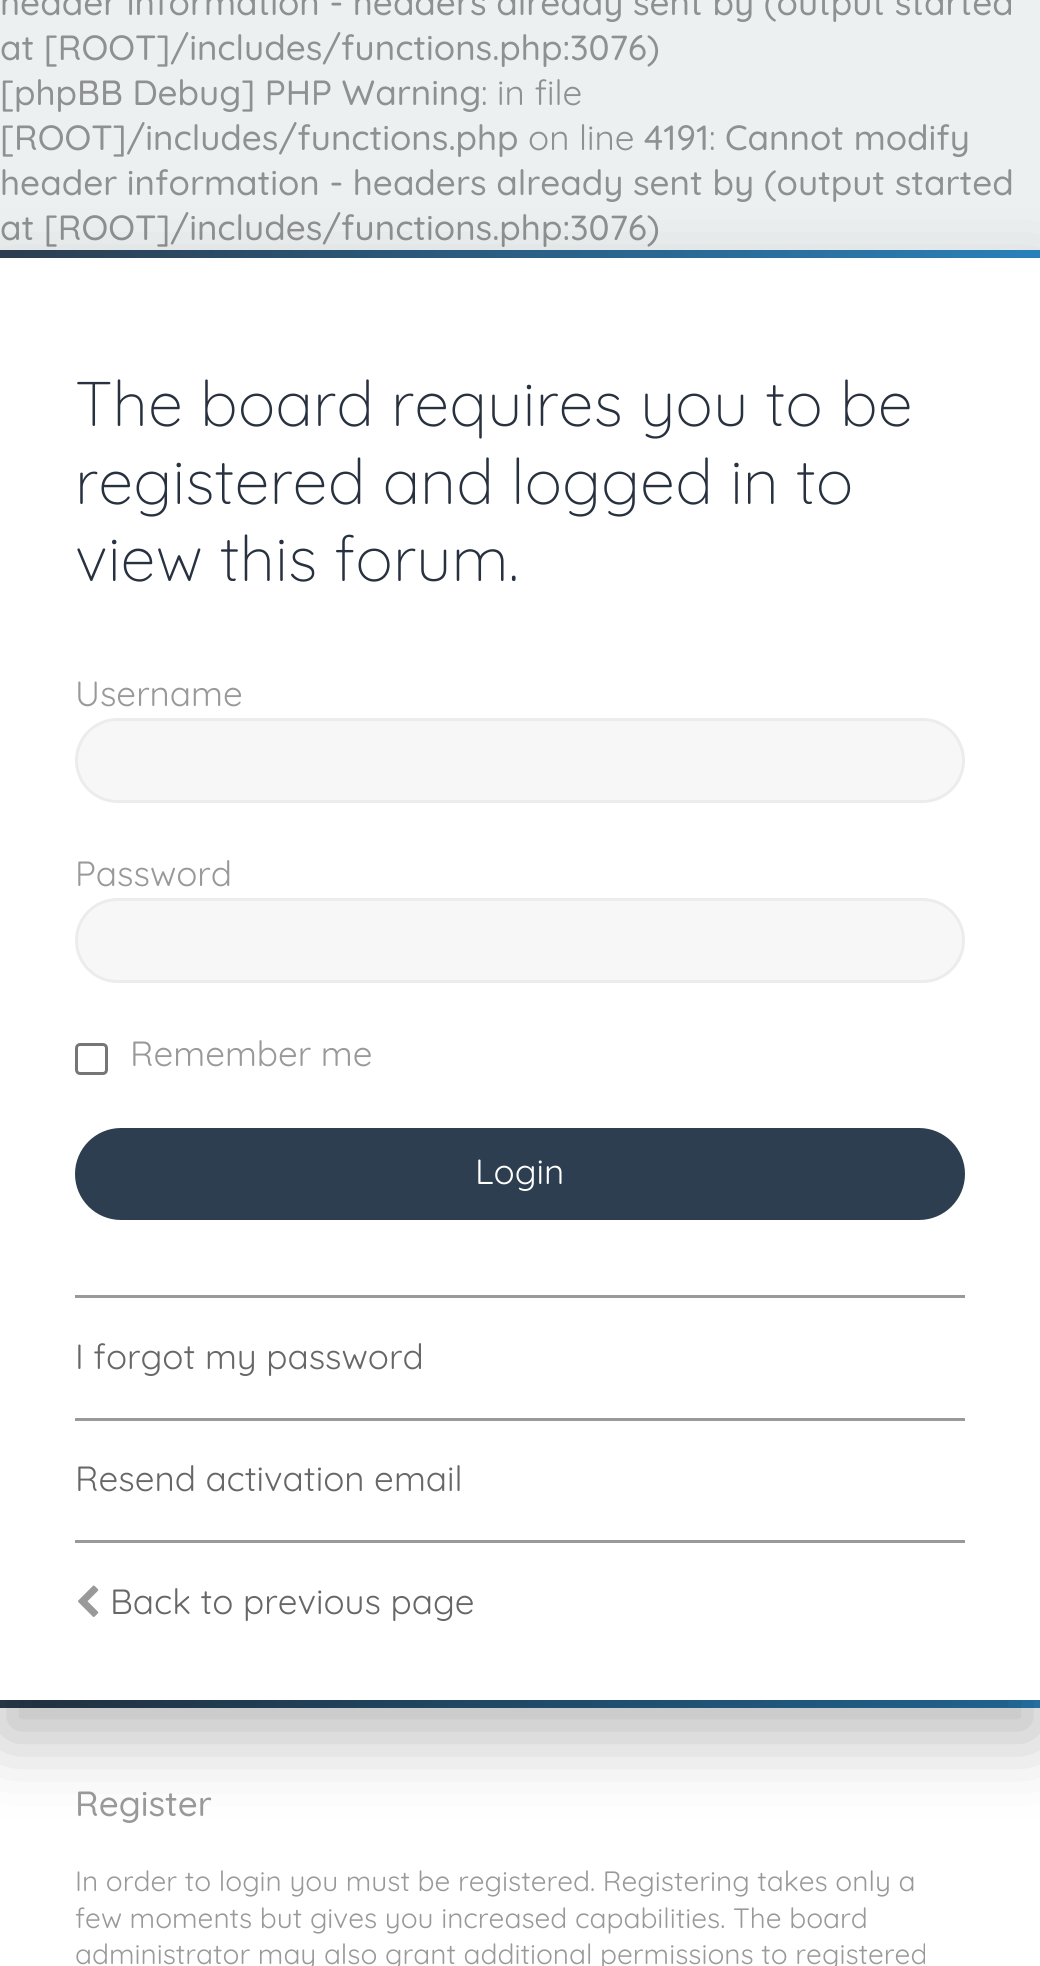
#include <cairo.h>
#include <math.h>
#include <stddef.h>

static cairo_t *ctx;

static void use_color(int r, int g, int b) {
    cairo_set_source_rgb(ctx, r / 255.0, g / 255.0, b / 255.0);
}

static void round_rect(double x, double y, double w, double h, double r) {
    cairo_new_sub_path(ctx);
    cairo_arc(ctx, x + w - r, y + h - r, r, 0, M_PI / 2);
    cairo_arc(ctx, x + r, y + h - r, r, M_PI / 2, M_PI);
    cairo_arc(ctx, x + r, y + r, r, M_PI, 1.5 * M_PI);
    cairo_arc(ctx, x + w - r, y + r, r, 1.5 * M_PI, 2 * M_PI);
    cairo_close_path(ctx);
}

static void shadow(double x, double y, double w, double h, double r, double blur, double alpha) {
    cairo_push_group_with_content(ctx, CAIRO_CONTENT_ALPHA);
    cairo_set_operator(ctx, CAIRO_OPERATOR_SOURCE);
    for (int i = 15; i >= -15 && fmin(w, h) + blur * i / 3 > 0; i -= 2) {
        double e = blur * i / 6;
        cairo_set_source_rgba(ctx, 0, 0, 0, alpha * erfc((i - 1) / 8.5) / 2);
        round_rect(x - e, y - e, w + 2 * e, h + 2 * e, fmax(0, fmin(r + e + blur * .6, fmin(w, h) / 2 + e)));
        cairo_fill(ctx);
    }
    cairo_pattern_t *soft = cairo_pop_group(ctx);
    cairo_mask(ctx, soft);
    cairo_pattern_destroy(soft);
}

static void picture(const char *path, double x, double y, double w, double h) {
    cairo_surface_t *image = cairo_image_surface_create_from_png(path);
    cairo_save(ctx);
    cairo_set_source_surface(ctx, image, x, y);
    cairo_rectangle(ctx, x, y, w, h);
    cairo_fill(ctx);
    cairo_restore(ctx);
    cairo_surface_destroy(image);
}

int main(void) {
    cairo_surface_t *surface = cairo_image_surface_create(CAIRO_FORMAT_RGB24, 1040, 1966);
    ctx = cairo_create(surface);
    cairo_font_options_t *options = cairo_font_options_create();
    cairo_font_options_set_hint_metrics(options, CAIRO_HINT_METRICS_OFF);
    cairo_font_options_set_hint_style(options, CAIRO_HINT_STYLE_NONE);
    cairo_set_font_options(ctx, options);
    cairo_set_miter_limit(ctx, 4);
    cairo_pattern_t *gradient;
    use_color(236, 240, 241);
    cairo_paint(ctx);
    cairo_select_font_face(ctx, "Quicksand Medium", CAIRO_FONT_SLANT_NORMAL, CAIRO_FONT_WEIGHT_NORMAL);
    cairo_set_font_size(ctx, 35);
    use_color(142, 144, 145);
    cairo_move_to(ctx, 0, 15);
    cairo_show_text(ctx, "header information - headers already sent by (output started");
    cairo_move_to(ctx, 0, 60);
    cairo_show_text(ctx, "at [ROOT]/includes/functions.php:3076)");
    cairo_move_to(ctx, 0, 105);
    cairo_show_text(ctx, "[phpBB Debug] PHP Warning");
    cairo_select_font_face(ctx, "Quicksand", CAIRO_FONT_SLANT_NORMAL, CAIRO_FONT_WEIGHT_NORMAL);
    cairo_move_to(ctx, 481, 105);
    cairo_show_text(ctx, ": in file");
    cairo_select_font_face(ctx, "Quicksand Medium", CAIRO_FONT_SLANT_NORMAL, CAIRO_FONT_WEIGHT_NORMAL);
    cairo_move_to(ctx, 0, 150);
    cairo_show_text(ctx, "[ROOT]/includes/functions.php");
    cairo_select_font_face(ctx, "Quicksand", CAIRO_FONT_SLANT_NORMAL, CAIRO_FONT_WEIGHT_NORMAL);
    cairo_move_to(ctx, 528, 150);
    cairo_show_text(ctx, "on line");
    cairo_select_font_face(ctx, "Quicksand Medium", CAIRO_FONT_SLANT_NORMAL, CAIRO_FONT_WEIGHT_NORMAL);
    cairo_move_to(ctx, 644, 150);
    cairo_show_text(ctx, "4191");
    cairo_select_font_face(ctx, "Quicksand", CAIRO_FONT_SLANT_NORMAL, CAIRO_FONT_WEIGHT_NORMAL);
    cairo_move_to(ctx, 709, 150);
    cairo_show_text(ctx, ":");
    cairo_select_font_face(ctx, "Quicksand Medium", CAIRO_FONT_SLANT_NORMAL, CAIRO_FONT_WEIGHT_NORMAL);
    cairo_move_to(ctx, 725, 150);
    cairo_show_text(ctx, "Cannot modify");
    cairo_move_to(ctx, 0, 195);
    cairo_show_text(ctx, "header information - headers already sent by (output started");
    cairo_move_to(ctx, 0, 240);
    cairo_show_text(ctx, "at [ROOT]/includes/functions.php:3076)");
    use_color(255, 255, 255);
    cairo_rectangle(ctx, 0, 1708, 1040, 258);
    cairo_fill(ctx);
    gradient = cairo_pattern_create_linear(0, 1704, 1040, 1704);
    cairo_pattern_add_color_stop_rgba(gradient, 0, 0.173, 0.243, 0.314, 1);
    cairo_pattern_add_color_stop_rgba(gradient, 1, 0.161, 0.502, 0.725, 1);
    cairo_set_source(ctx, gradient);
    cairo_pattern_destroy(gradient);
    cairo_rectangle(ctx, 0, 1700, 1040, 8);
    cairo_fill(ctx);
    use_color(0, 0, 0);
    shadow(0, 288, 1040, 1450, 0, 37.5, 0.27);
    use_color(255, 255, 255);
    cairo_rectangle(ctx, 0, 258, 1040, 1442);
    cairo_fill(ctx);
    gradient = cairo_pattern_create_linear(0, 254, 1040, 254);
    cairo_pattern_add_color_stop_rgba(gradient, 0, 0.173, 0.243, 0.314, 1);
    cairo_pattern_add_color_stop_rgba(gradient, 1, 0.161, 0.502, 0.725, 1);
    cairo_set_source(ctx, gradient);
    cairo_pattern_destroy(gradient);
    cairo_rectangle(ctx, 0, 250, 1040, 8);
    cairo_fill(ctx);
    cairo_select_font_face(ctx, "Quicksand Light", CAIRO_FONT_SLANT_NORMAL, CAIRO_FONT_WEIGHT_NORMAL);
    cairo_set_font_size(ctx, 63);
    use_color(40, 49, 63);
    cairo_move_to(ctx, 75, 426);
    cairo_show_text(ctx, "The board requires you to be");
    cairo_move_to(ctx, 75, 504);
    cairo_show_text(ctx, "registered and logged in to");
    cairo_move_to(ctx, 75, 581);
    cairo_show_text(ctx, "view this forum.");
    cairo_select_font_face(ctx, "Quicksand", CAIRO_FONT_SLANT_NORMAL, CAIRO_FONT_WEIGHT_NORMAL);
    cairo_set_font_size(ctx, 35);
    use_color(153, 153, 153);
    cairo_move_to(ctx, 75, 706);
    cairo_show_text(ctx, "Username");
    use_color(247, 247, 247);
    round_rect(76.5, 719.5, 887, 82, 41);
    cairo_fill_preserve(ctx);
    use_color(237, 236, 236);
    cairo_set_line_width(ctx, 3);
    cairo_stroke(ctx);
    use_color(153, 153, 153);
    cairo_move_to(ctx, 75, 886);
    cairo_show_text(ctx, "Password");
    use_color(247, 247, 247);
    round_rect(76.5, 899.5, 887, 82, 41);
    cairo_fill_preserve(ctx);
    use_color(237, 236, 236);
    cairo_stroke(ctx);
    round_rect(76.5, 1044.5, 30, 29, 3.5);
    use_color(118, 118, 118);
    cairo_stroke(ctx);
    use_color(153, 153, 153);
    cairo_move_to(ctx, 130, 1066);
    cairo_show_text(ctx, "Remember me");
    use_color(44, 62, 80);
    round_rect(76.5, 1129.5, 887, 89, 44.5);
    cairo_fill_preserve(ctx);
    cairo_stroke(ctx);
    use_color(255, 255, 255);
    cairo_move_to(ctx, 475, 1184);
    cairo_show_text(ctx, "Login");
    use_color(153, 153, 153);
    cairo_rectangle(ctx, 75, 1295, 890, 3);
    cairo_fill(ctx);
    use_color(103, 103, 103);
    cairo_move_to(ctx, 75, 1369);
    cairo_show_text(ctx, "I forgot my password");
    use_color(153, 153, 153);
    cairo_rectangle(ctx, 75, 1418, 890, 3);
    cairo_fill(ctx);
    use_color(103, 103, 103);
    cairo_move_to(ctx, 75, 1491);
    cairo_show_text(ctx, "Resend activation email");
    use_color(153, 153, 153);
    cairo_rectangle(ctx, 75, 1540, 890, 3);
    cairo_fill(ctx);
    picture("img1.png", 78, 1585, 21, 32);
    use_color(103, 103, 103);
    cairo_move_to(ctx, 110, 1614);
    cairo_show_text(ctx, "Back to previous page");
    cairo_select_font_face(ctx, "Quicksand Medium", CAIRO_FONT_SLANT_NORMAL, CAIRO_FONT_WEIGHT_NORMAL);
    use_color(153, 153, 153);
    cairo_move_to(ctx, 75, 1816);
    cairo_show_text(ctx, "Register");
    cairo_select_font_face(ctx, "Quicksand", CAIRO_FONT_SLANT_NORMAL, CAIRO_FONT_WEIGHT_NORMAL);
    cairo_set_font_size(ctx, 28);
    cairo_move_to(ctx, 75, 1891);
    cairo_show_text(ctx, "In order to login you must be registered. Registering takes only a");
    cairo_move_to(ctx, 75, 1928);
    cairo_show_text(ctx, "few moments but gives you increased capabilities. The board");
    cairo_move_to(ctx, 75, 1964);
    cairo_show_text(ctx, "administrator may also grant additional permissions to registered");
    cairo_surface_write_to_png(surface, "result.png");
    cairo_font_options_destroy(options);
    cairo_destroy(ctx);
    cairo_surface_destroy(surface);
    return 0;
}
